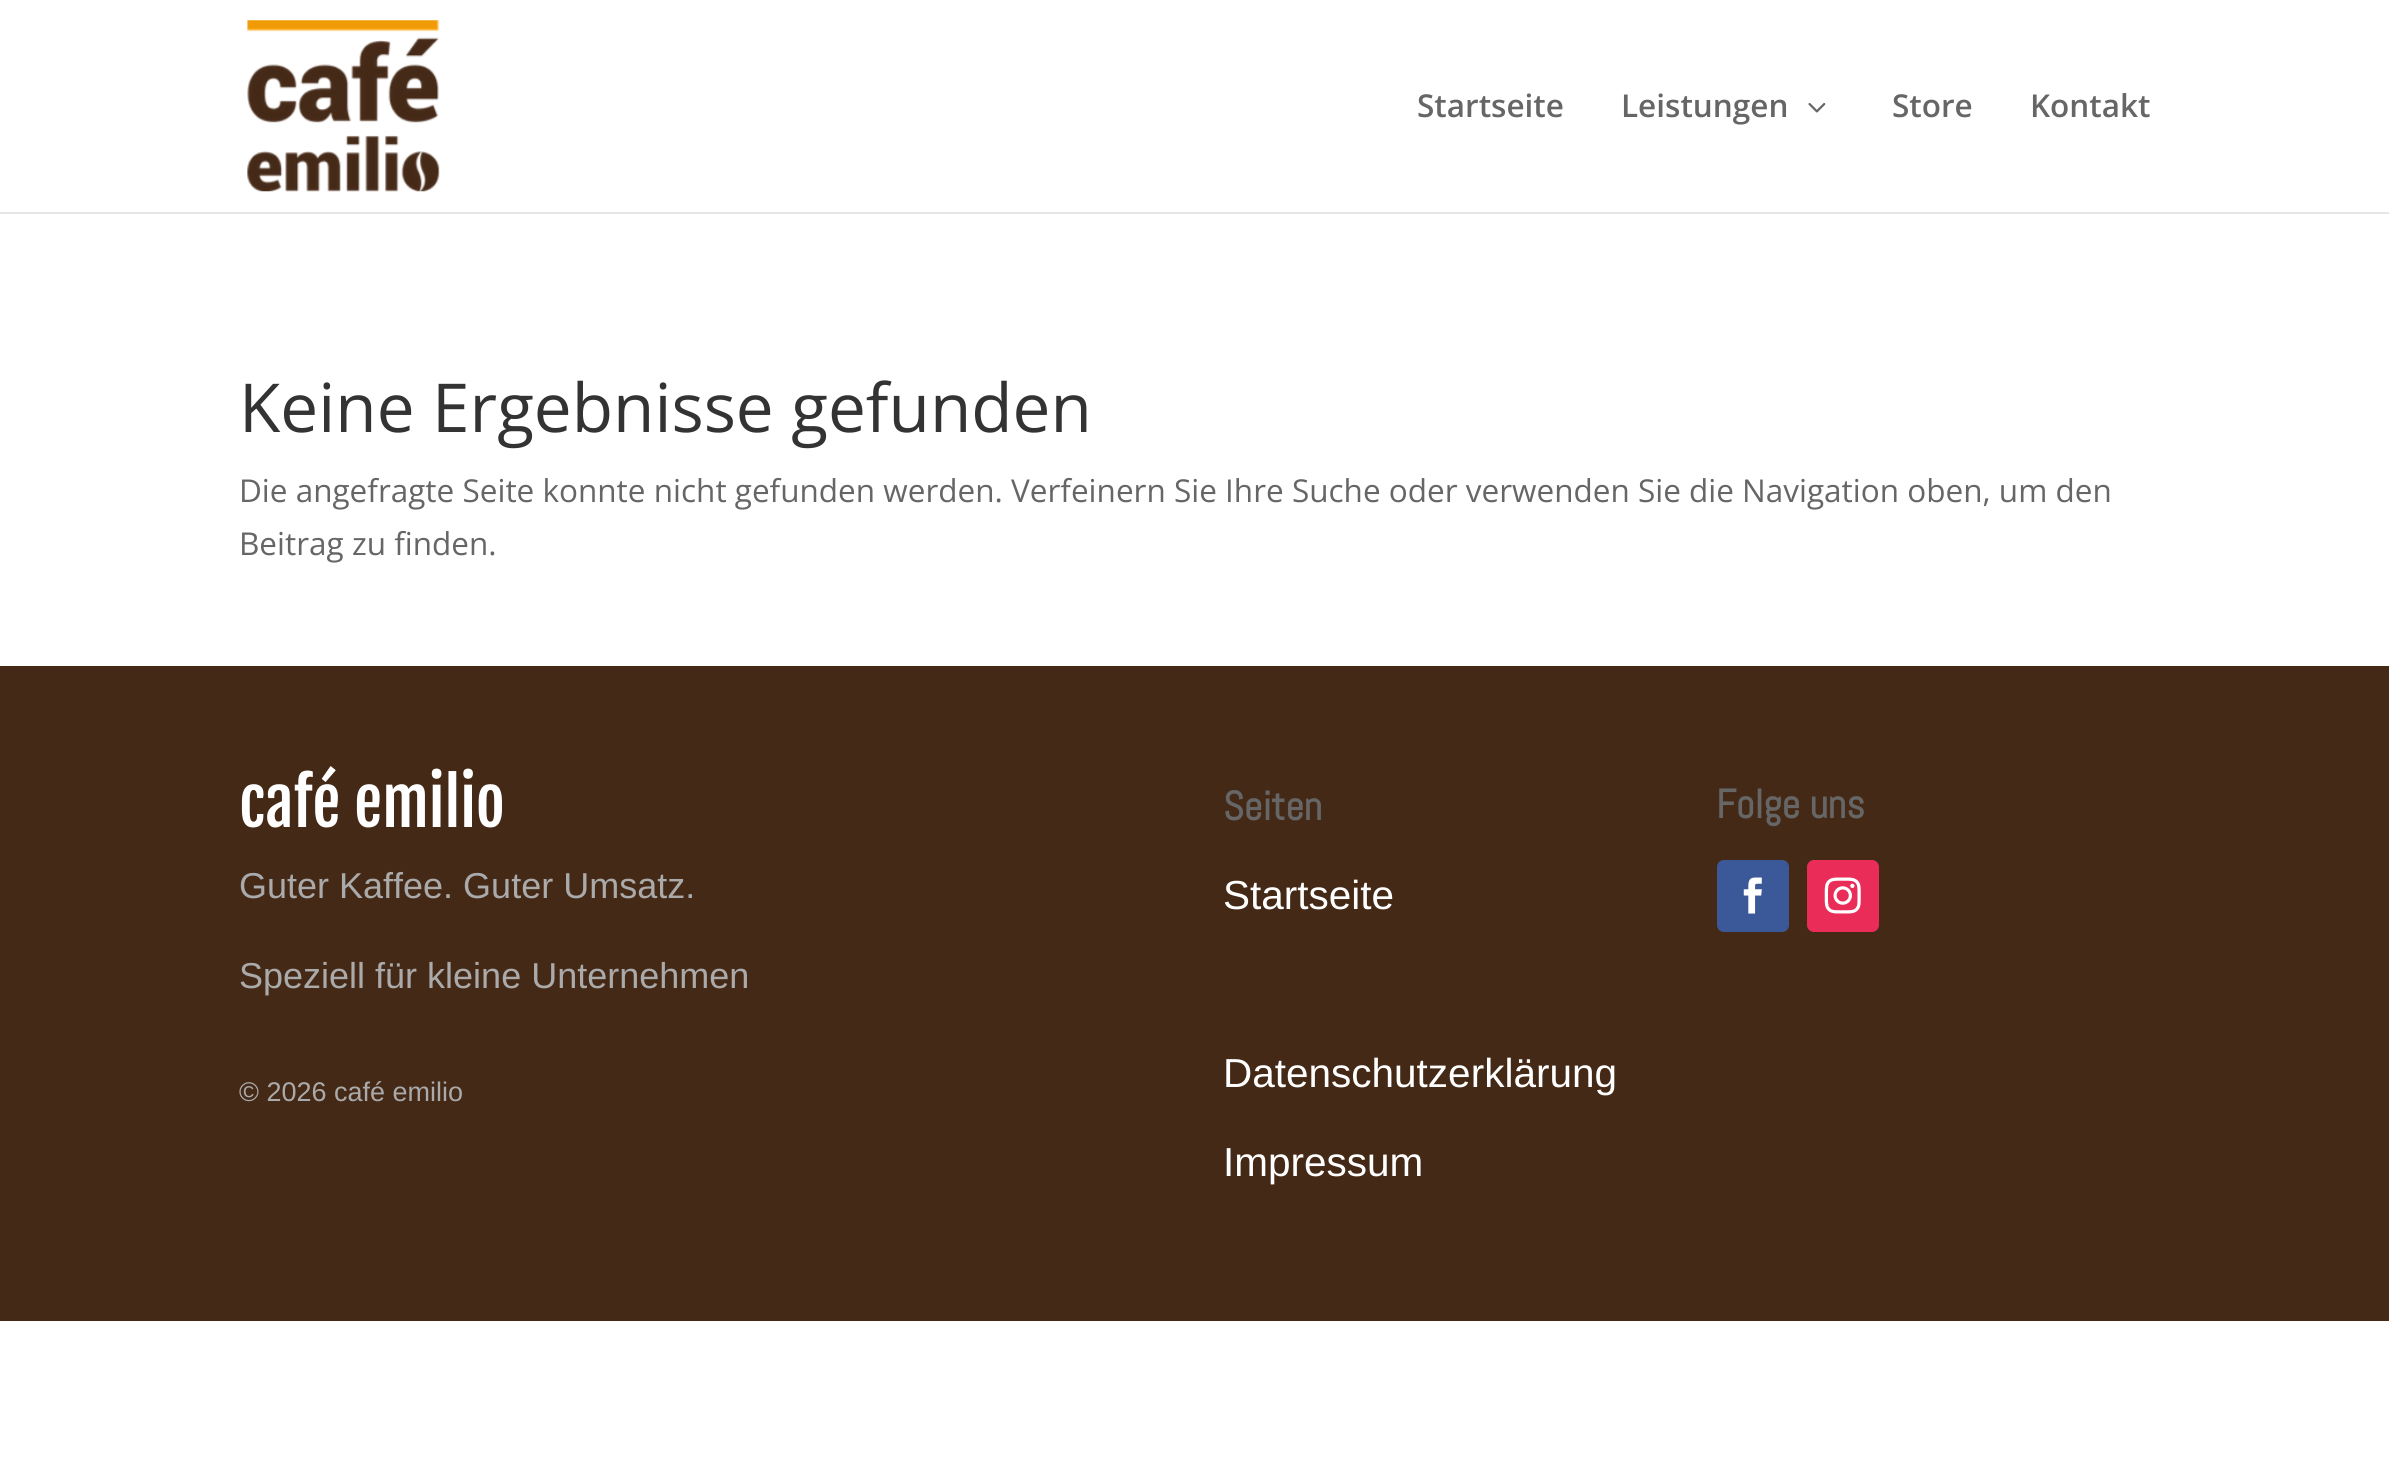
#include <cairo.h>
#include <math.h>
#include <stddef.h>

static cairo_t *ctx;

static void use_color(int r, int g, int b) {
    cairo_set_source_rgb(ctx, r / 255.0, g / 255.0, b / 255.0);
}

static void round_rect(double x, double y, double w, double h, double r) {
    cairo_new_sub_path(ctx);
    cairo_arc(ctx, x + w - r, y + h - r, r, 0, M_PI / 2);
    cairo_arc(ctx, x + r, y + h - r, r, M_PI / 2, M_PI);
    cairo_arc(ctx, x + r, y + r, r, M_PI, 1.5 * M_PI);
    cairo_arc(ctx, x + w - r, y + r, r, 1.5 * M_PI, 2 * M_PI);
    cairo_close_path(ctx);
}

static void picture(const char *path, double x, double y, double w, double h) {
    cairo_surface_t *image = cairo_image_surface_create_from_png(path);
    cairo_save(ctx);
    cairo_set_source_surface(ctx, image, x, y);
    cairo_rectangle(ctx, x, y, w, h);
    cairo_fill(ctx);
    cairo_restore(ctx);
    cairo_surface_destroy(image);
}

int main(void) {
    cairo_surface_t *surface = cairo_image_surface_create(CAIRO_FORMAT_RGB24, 2389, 1464);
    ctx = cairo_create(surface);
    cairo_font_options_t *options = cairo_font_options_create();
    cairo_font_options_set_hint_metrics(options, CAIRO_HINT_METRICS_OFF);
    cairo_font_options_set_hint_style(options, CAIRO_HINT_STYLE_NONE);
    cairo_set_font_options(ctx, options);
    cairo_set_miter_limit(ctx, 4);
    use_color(255, 255, 255);
    cairo_paint(ctx);
    use_color(230, 230, 230);
    cairo_new_path(ctx);
    cairo_move_to(ctx, 0, 212);
    cairo_line_to(ctx, 0, 214);
    cairo_line_to(ctx, 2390, 214);
    cairo_line_to(ctx, 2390, 2);
    cairo_line_to(ctx, 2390, 212);
    cairo_close_path(ctx);
    cairo_fill(ctx);
    picture("img1.png", 247, 20, 193, 172);
    cairo_select_font_face(ctx, "Open Sans SemiBold", CAIRO_FONT_SLANT_NORMAL, CAIRO_FONT_WEIGHT_NORMAL);
    cairo_set_font_size(ctx, 31.5);
    use_color(102, 102, 102);
    cairo_move_to(ctx, 1417, 117);
    cairo_show_text(ctx, "Startseite");
    cairo_move_to(ctx, 1621, 117);
    cairo_show_text(ctx, "Leistungen");
    picture("img2.png", 1808, 103, 18, 10);
    cairo_move_to(ctx, 1892, 117);
    cairo_show_text(ctx, "Store");
    cairo_move_to(ctx, 2030, 117);
    cairo_show_text(ctx, "Kontakt");
    cairo_select_font_face(ctx, "Open Sans", CAIRO_FONT_SLANT_NORMAL, CAIRO_FONT_WEIGHT_NORMAL);
    cairo_set_font_size(ctx, 67.5);
    use_color(51, 51, 51);
    cairo_move_to(ctx, 239, 432);
    cairo_show_text(ctx, "Keine Ergebnisse gefunden");
    cairo_set_font_size(ctx, 31.5);
    use_color(102, 102, 102);
    cairo_move_to(ctx, 239, 502);
    cairo_show_text(ctx, "Die angefragte Seite konnte nicht gefunden werden. Verfeinern Sie Ihre Suche oder verwenden Sie die Navigation oben, um den");
    cairo_move_to(ctx, 239, 555);
    cairo_show_text(ctx, "Beitrag zu finden.");
    use_color(69, 41, 23);
    cairo_rectangle(ctx, 0, 666, 2389, 655);
    cairo_fill(ctx);
    cairo_select_font_face(ctx, "Fjalla One", CAIRO_FONT_SLANT_NORMAL, CAIRO_FONT_WEIGHT_NORMAL);
    cairo_set_font_size(ctx, 63);
    use_color(255, 255, 255);
    cairo_move_to(ctx, 239, 827);
    cairo_show_text(ctx, "café emilio");
    cairo_select_font_face(ctx, "Liberation Sans", CAIRO_FONT_SLANT_NORMAL, CAIRO_FONT_WEIGHT_NORMAL);
    cairo_set_font_size(ctx, 36);
    use_color(170, 170, 170);
    cairo_move_to(ctx, 239, 898);
    cairo_show_text(ctx, "Guter Kaffee. Guter Umsatz.");
    cairo_move_to(ctx, 239, 988);
    cairo_show_text(ctx, "Speziell für kleine Unternehmen");
    cairo_set_font_size(ctx, 27);
    cairo_move_to(ctx, 239, 1101);
    cairo_show_text(ctx, "© 2026 café emilio");
    cairo_select_font_face(ctx, "Abel", CAIRO_FONT_SLANT_NORMAL, CAIRO_FONT_WEIGHT_BOLD);
    cairo_set_font_size(ctx, 40.5);
    use_color(102, 102, 102);
    cairo_move_to(ctx, 1223, 820);
    cairo_show_text(ctx, "Seiten");
    cairo_select_font_face(ctx, "Liberation Sans", CAIRO_FONT_SLANT_NORMAL, CAIRO_FONT_WEIGHT_NORMAL);
    use_color(255, 255, 255);
    cairo_move_to(ctx, 1223, 909);
    cairo_show_text(ctx, "Startseite");
    cairo_move_to(ctx, 1223, 1087);
    cairo_show_text(ctx, "Datenschutzerklärung");
    cairo_move_to(ctx, 1223, 1176);
    cairo_show_text(ctx, "Impressum");
    cairo_select_font_face(ctx, "Abel", CAIRO_FONT_SLANT_NORMAL, CAIRO_FONT_WEIGHT_BOLD);
    use_color(102, 102, 102);
    cairo_move_to(ctx, 1716, 818);
    cairo_show_text(ctx, "Folge uns");
    use_color(59, 89, 152);
    round_rect(1717, 860, 72, 72, 7);
    cairo_fill(ctx);
    picture("img3.png", 1743, 877, 19, 37);
    use_color(234, 44, 89);
    round_rect(1807, 860, 72, 72, 7);
    cairo_fill(ctx);
    picture("img4.png", 1824, 877, 37, 37);
    cairo_surface_write_to_png(surface, "result.png");
    cairo_font_options_destroy(options);
    cairo_destroy(ctx);
    cairo_surface_destroy(surface);
    return 0;
}
